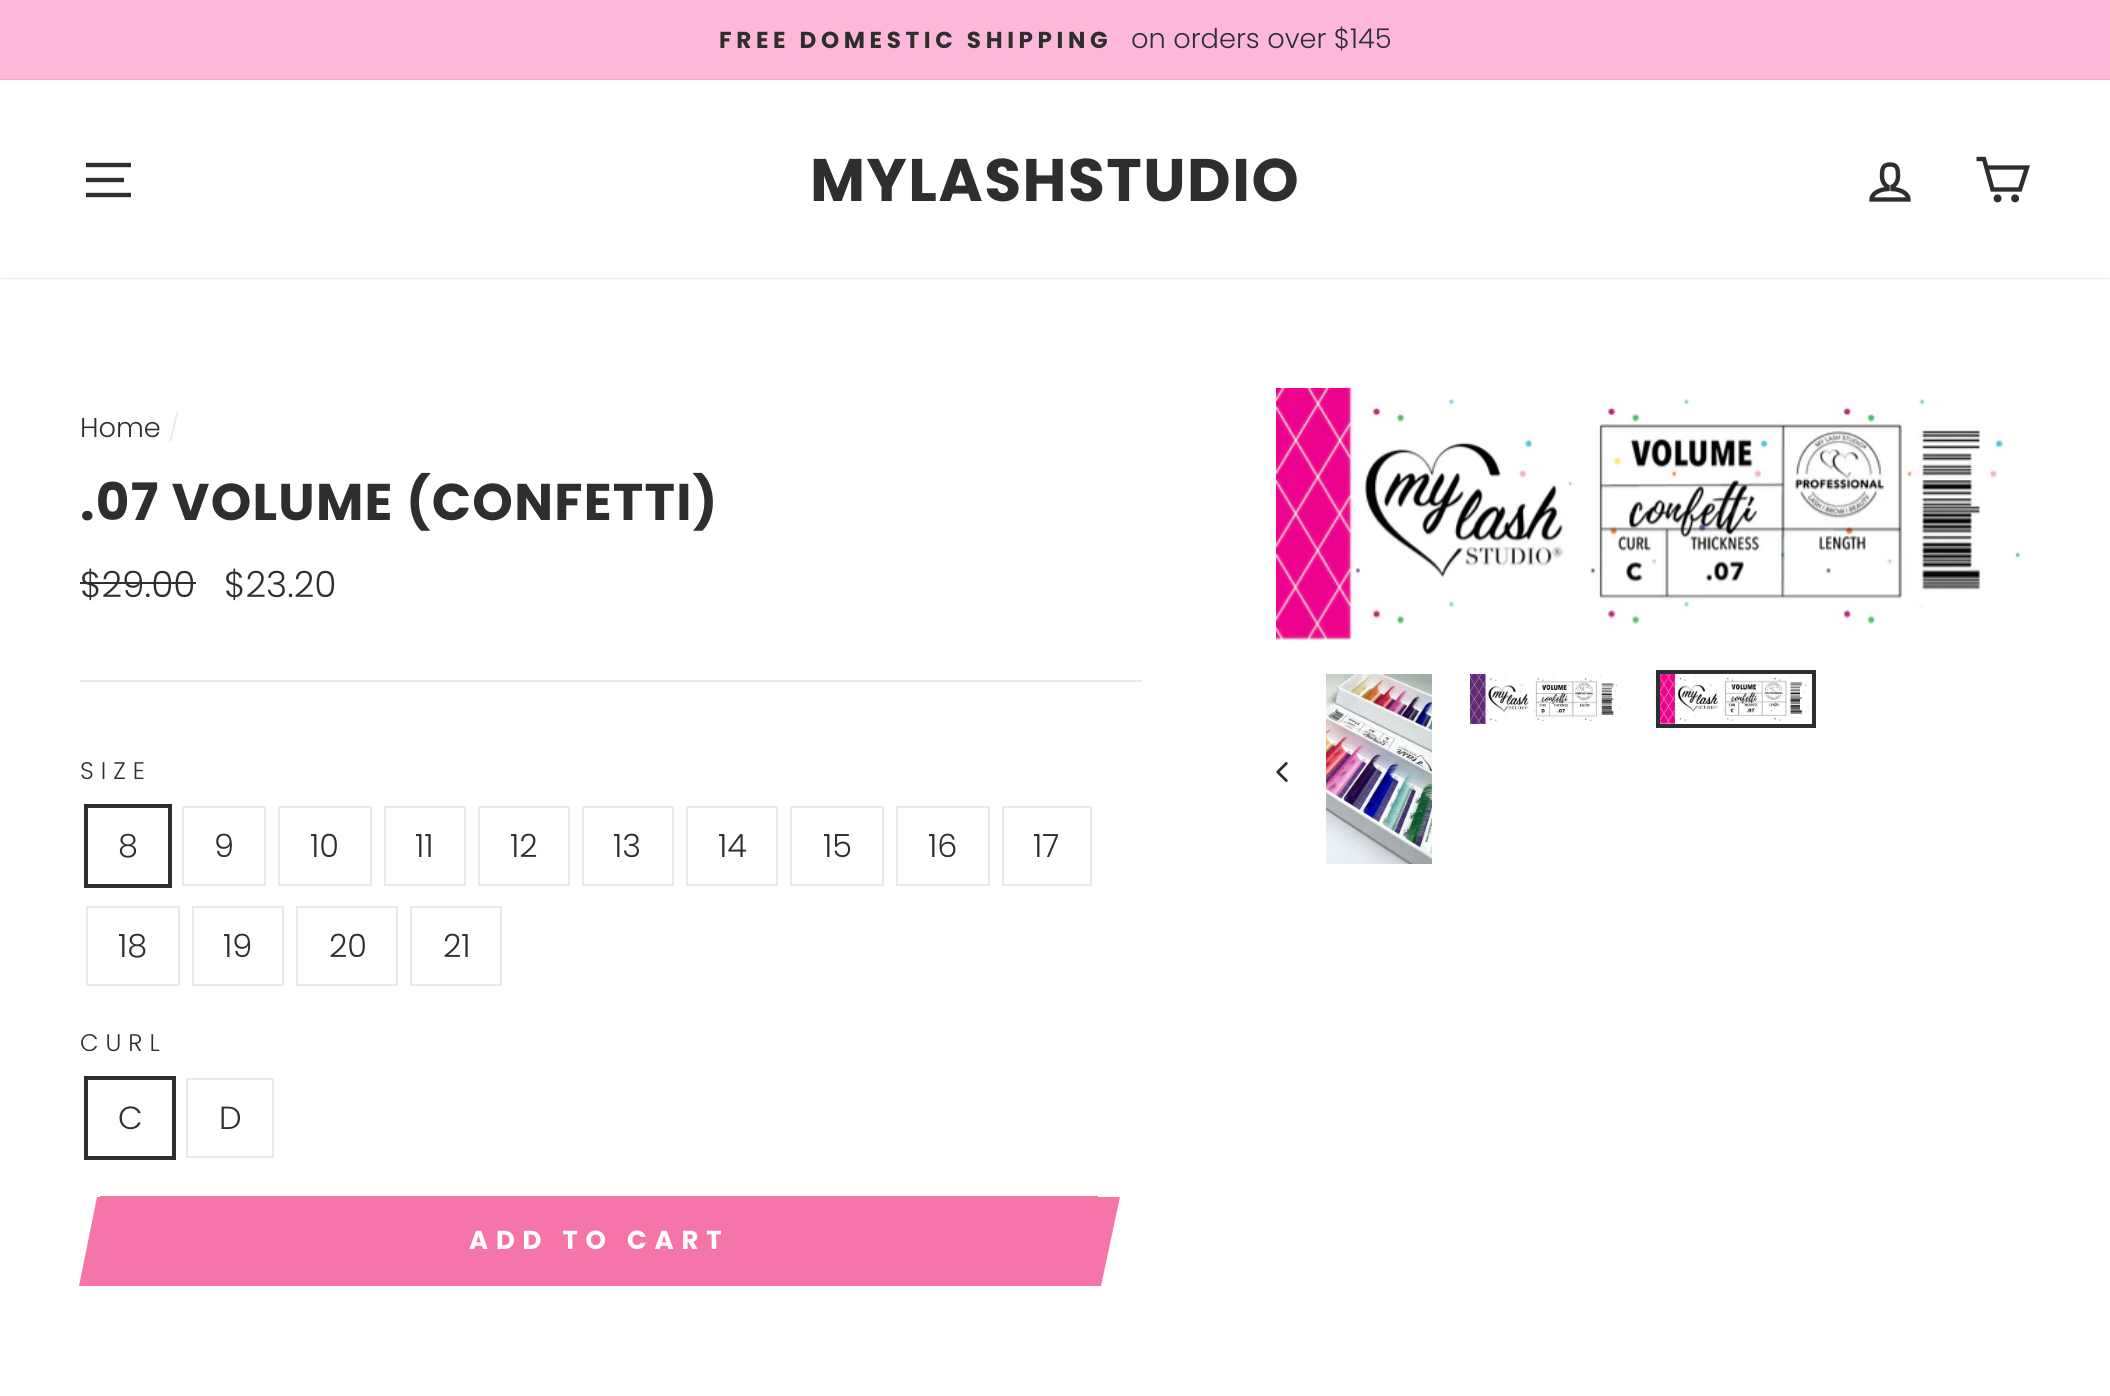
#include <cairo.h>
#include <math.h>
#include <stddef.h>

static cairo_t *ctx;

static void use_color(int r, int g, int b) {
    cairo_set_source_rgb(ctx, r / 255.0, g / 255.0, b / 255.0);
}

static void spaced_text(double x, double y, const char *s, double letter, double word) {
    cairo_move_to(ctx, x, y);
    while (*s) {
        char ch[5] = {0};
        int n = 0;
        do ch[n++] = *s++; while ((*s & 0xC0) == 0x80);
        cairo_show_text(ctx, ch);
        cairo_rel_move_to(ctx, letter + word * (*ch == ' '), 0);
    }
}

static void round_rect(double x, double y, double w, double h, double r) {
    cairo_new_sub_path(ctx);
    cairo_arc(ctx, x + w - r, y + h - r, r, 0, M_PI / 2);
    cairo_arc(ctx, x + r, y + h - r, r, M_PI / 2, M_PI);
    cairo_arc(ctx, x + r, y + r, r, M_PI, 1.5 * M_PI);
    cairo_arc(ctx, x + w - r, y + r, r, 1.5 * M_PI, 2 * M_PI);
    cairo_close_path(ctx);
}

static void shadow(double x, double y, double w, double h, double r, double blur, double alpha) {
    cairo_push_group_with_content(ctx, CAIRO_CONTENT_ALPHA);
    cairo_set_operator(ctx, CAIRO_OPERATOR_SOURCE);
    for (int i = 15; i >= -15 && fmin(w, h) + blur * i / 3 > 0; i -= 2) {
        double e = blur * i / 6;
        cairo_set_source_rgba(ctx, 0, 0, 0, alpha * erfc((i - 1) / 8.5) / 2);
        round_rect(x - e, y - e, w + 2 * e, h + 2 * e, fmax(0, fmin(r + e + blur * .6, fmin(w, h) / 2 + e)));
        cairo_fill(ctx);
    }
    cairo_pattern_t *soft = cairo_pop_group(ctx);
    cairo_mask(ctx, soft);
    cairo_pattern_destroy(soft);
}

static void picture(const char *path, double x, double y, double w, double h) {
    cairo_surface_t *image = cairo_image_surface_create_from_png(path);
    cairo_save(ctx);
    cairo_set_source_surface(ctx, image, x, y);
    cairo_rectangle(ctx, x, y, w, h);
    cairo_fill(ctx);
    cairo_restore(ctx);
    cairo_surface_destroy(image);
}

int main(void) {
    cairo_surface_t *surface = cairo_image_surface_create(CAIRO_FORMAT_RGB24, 2110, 1396);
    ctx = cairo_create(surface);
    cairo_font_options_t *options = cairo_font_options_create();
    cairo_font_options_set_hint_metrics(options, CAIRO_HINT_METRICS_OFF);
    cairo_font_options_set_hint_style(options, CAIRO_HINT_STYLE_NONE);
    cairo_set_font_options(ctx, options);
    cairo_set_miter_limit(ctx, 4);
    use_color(255, 255, 255);
    cairo_paint(ctx);
    use_color(253, 184, 217);
    cairo_rectangle(ctx, 0, 0, 2110, 80);
    cairo_fill(ctx);
    cairo_select_font_face(ctx, "Poppins", CAIRO_FONT_SLANT_NORMAL, CAIRO_FONT_WEIGHT_BOLD);
    cairo_set_font_size(ctx, 23.1);
    use_color(46, 46, 46);
    spaced_text(719, 48, "FREE DOMESTIC SHIPPING", 4.6, 0);
    cairo_select_font_face(ctx, "Poppins Light", CAIRO_FONT_SLANT_NORMAL, CAIRO_FONT_WEIGHT_NORMAL);
    cairo_set_font_size(ctx, 27.25);
    cairo_move_to(ctx, 1131, 48);
    cairo_show_text(ctx, "on orders over $145");
    cairo_save(ctx);
    cairo_set_fill_rule(ctx, CAIRO_FILL_RULE_EVEN_ODD);
    cairo_new_path(ctx);
    cairo_move_to(ctx, 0, 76);
    cairo_line_to(ctx, 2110, 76);
    cairo_line_to(ctx, 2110, 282);
    cairo_line_to(ctx, 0, 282);
    cairo_close_path(ctx);
    cairo_move_to(ctx, 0, 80);
    cairo_line_to(ctx, 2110, 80);
    cairo_line_to(ctx, 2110, 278);
    cairo_line_to(ctx, 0, 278);
    cairo_close_path(ctx);
    cairo_clip(ctx);
    use_color(0, 0, 0);
    shadow(0, 80, 2110, 198, 0, 1, 0.2);
    cairo_restore(ctx);
    cairo_new_path(ctx);
    cairo_move_to(ctx, 86, 165);
    cairo_line_to(ctx, 131, 165);
    cairo_move_to(ctx, 86, 180);
    cairo_line_to(ctx, 124, 180);
    cairo_move_to(ctx, 86, 195);
    cairo_line_to(ctx, 131, 195);
    cairo_set_line_width(ctx, 4.4);
    cairo_stroke(ctx);
    cairo_select_font_face(ctx, "Poppins", CAIRO_FONT_SLANT_NORMAL, CAIRO_FONT_WEIGHT_BOLD);
    cairo_set_font_size(ctx, 60);
    spaced_text(810, 201, "MYLASHSTUDIO", 1.5, 0);
    cairo_new_path(ctx);
    cairo_move_to(ctx, 1892.5, 189);
    cairo_line_to(ctx, 1892.5, 186.5);
    cairo_curve_to(ctx, 1895.5, 185, 1898, 181, 1898, 176.5);
    cairo_curve_to(ctx, 1898, 170, 1898, 164.5, 1890, 164.5);
    cairo_curve_to(ctx, 1882, 164.5, 1882, 170, 1882, 176.5);
    cairo_curve_to(ctx, 1882, 181, 1884.5, 185, 1887.5, 186.5);
    cairo_line_to(ctx, 1887.5, 189);
    cairo_curve_to(ctx, 1878.5, 189.5, 1871.5, 194, 1871.5, 199.5);
    cairo_line_to(ctx, 1908.5, 199.5);
    cairo_curve_to(ctx, 1908.5, 194, 1901.5, 189.5, 1892.5, 189);
    cairo_close_path(ctx);
    cairo_stroke(ctx);
    cairo_new_path(ctx);
    cairo_move_to(ctx, 1986, 167.5);
    cairo_line_to(ctx, 2027, 167.5);
    cairo_line_to(ctx, 2020, 189.5);
    cairo_line_to(ctx, 1992.5, 189.5);
    cairo_line_to(ctx, 1984, 159);
    cairo_line_to(ctx, 1976.5, 159);
    cairo_stroke(ctx);
    cairo_arc(ctx, 1997.6, 198.4, 1.8, 0, 2 * M_PI);
    cairo_fill_preserve(ctx);
    cairo_stroke(ctx);
    cairo_arc(ctx, 2015.1, 198.4, 1.8, 0, 2 * M_PI);
    cairo_fill_preserve(ctx);
    cairo_stroke(ctx);
    cairo_select_font_face(ctx, "Poppins Light", CAIRO_FONT_SLANT_NORMAL, CAIRO_FONT_WEIGHT_NORMAL);
    cairo_set_font_size(ctx, 27.25);
    cairo_move_to(ctx, 80, 437);
    cairo_show_text(ctx, "Home");
    use_color(234, 234, 234);
    cairo_move_to(ctx, 168, 437);
    cairo_show_text(ctx, "/");
    cairo_select_font_face(ctx, "Poppins", CAIRO_FONT_SLANT_NORMAL, CAIRO_FONT_WEIGHT_BOLD);
    cairo_set_font_size(ctx, 51.6);
    use_color(46, 46, 46);
    spaced_text(80, 520, ".07 VOLUME (CONFETTI)", 1.25, 0);
    cairo_select_font_face(ctx, "Poppins Light", CAIRO_FONT_SLANT_NORMAL, CAIRO_FONT_WEIGHT_NORMAL);
    cairo_set_font_size(ctx, 36);
    cairo_move_to(ctx, 80, 597);
    cairo_show_text(ctx, "$29.00");
    cairo_rectangle(ctx, 80, 582, 116, 2);
    cairo_fill(ctx);
    cairo_move_to(ctx, 224, 597);
    cairo_show_text(ctx, "$23.20");
    use_color(234, 234, 234);
    cairo_rectangle(ctx, 80, 680, 1062, 2);
    cairo_fill(ctx);
    cairo_set_font_size(ctx, 24);
    use_color(46, 46, 46);
    spaced_text(80, 779, "SIZE", 7, 0);
    cairo_rectangle(ctx, 86, 806, 84, 80);
    cairo_set_line_width(ctx, 4);
    cairo_stroke(ctx);
    cairo_set_font_size(ctx, 32);
    cairo_move_to(ctx, 118, 857);
    cairo_show_text(ctx, "8");
    cairo_rectangle(ctx, 183, 807, 82, 78);
    use_color(234, 234, 234);
    cairo_set_line_width(ctx, 2);
    cairo_stroke(ctx);
    use_color(46, 46, 46);
    cairo_move_to(ctx, 214, 857);
    cairo_show_text(ctx, "9");
    cairo_rectangle(ctx, 279, 807, 92, 78);
    use_color(234, 234, 234);
    cairo_stroke(ctx);
    use_color(46, 46, 46);
    cairo_move_to(ctx, 310, 857);
    cairo_show_text(ctx, "10");
    cairo_rectangle(ctx, 385, 807, 80, 78);
    use_color(234, 234, 234);
    cairo_stroke(ctx);
    use_color(46, 46, 46);
    cairo_move_to(ctx, 415, 857);
    cairo_show_text(ctx, "11");
    cairo_rectangle(ctx, 479, 807, 90, 78);
    use_color(234, 234, 234);
    cairo_stroke(ctx);
    use_color(46, 46, 46);
    cairo_move_to(ctx, 510, 857);
    cairo_show_text(ctx, "12");
    cairo_rectangle(ctx, 583, 807, 90, 78);
    use_color(234, 234, 234);
    cairo_stroke(ctx);
    use_color(46, 46, 46);
    cairo_move_to(ctx, 613, 857);
    cairo_show_text(ctx, "13");
    cairo_rectangle(ctx, 687, 807, 90, 78);
    use_color(234, 234, 234);
    cairo_stroke(ctx);
    use_color(46, 46, 46);
    cairo_move_to(ctx, 718, 857);
    cairo_show_text(ctx, "14");
    cairo_rectangle(ctx, 791, 807, 92, 78);
    use_color(234, 234, 234);
    cairo_stroke(ctx);
    use_color(46, 46, 46);
    cairo_move_to(ctx, 823, 857);
    cairo_show_text(ctx, "15");
    cairo_rectangle(ctx, 897, 807, 92, 78);
    use_color(234, 234, 234);
    cairo_stroke(ctx);
    use_color(46, 46, 46);
    cairo_move_to(ctx, 928, 857);
    cairo_show_text(ctx, "16");
    cairo_rectangle(ctx, 1003, 807, 88, 78);
    use_color(234, 234, 234);
    cairo_stroke(ctx);
    use_color(46, 46, 46);
    cairo_move_to(ctx, 1033, 857);
    cairo_show_text(ctx, "17");
    cairo_rectangle(ctx, 87, 907, 92, 78);
    use_color(234, 234, 234);
    cairo_stroke(ctx);
    use_color(46, 46, 46);
    cairo_move_to(ctx, 118, 957);
    cairo_show_text(ctx, "18");
    cairo_rectangle(ctx, 193, 907, 90, 78);
    use_color(234, 234, 234);
    cairo_stroke(ctx);
    use_color(46, 46, 46);
    cairo_move_to(ctx, 223, 957);
    cairo_show_text(ctx, "19");
    cairo_rectangle(ctx, 297, 907, 100, 78);
    use_color(234, 234, 234);
    cairo_stroke(ctx);
    use_color(46, 46, 46);
    cairo_move_to(ctx, 329, 957);
    cairo_show_text(ctx, "20");
    cairo_rectangle(ctx, 411, 907, 90, 78);
    use_color(234, 234, 234);
    cairo_stroke(ctx);
    use_color(46, 46, 46);
    cairo_move_to(ctx, 443, 957);
    cairo_show_text(ctx, "21");
    cairo_set_font_size(ctx, 24);
    spaced_text(80, 1051, "CURL", 7, 0);
    cairo_rectangle(ctx, 86, 1078, 88, 80);
    cairo_set_line_width(ctx, 4);
    cairo_stroke(ctx);
    cairo_set_font_size(ctx, 32);
    cairo_move_to(ctx, 118, 1129);
    cairo_show_text(ctx, "C");
    cairo_rectangle(ctx, 187, 1079, 86, 78);
    use_color(234, 234, 234);
    cairo_set_line_width(ctx, 2);
    cairo_stroke(ctx);
    use_color(46, 46, 46);
    cairo_move_to(ctx, 219, 1129);
    cairo_show_text(ctx, "D");
    use_color(246, 117, 168);
    cairo_rectangle(ctx, 100, 1196, 998, 90);
    cairo_fill(ctx);
    cairo_new_path(ctx);
    cairo_move_to(ctx, 97, 1197);
    cairo_line_to(ctx, 137, 1197);
    cairo_line_to(ctx, 119, 1286);
    cairo_line_to(ctx, 79, 1286);
    cairo_close_path(ctx);
    cairo_fill(ctx);
    cairo_select_font_face(ctx, "Poppins", CAIRO_FONT_SLANT_NORMAL, CAIRO_FONT_WEIGHT_BOLD);
    cairo_set_font_size(ctx, 26);
    use_color(255, 255, 255);
    spaced_text(469, 1249, "ADD TO CART", 7.75, 0);
    use_color(246, 117, 168);
    cairo_new_path(ctx);
    cairo_move_to(ctx, 1080, 1197);
    cairo_line_to(ctx, 1120, 1197);
    cairo_line_to(ctx, 1101, 1286);
    cairo_line_to(ctx, 1061, 1286);
    cairo_close_path(ctx);
    cairo_fill(ctx);
    picture("img1.png", 1276, 388, 747, 252);
    picture("img2.png", 1276, 762, 12, 20);
    picture("img3.png", 1326, 674, 106, 190);
    picture("img4.png", 1470, 674, 151, 50);
    cairo_rectangle(ctx, 1658, 672, 156, 54);
    use_color(46, 46, 46);
    cairo_set_line_width(ctx, 4);
    cairo_stroke(ctx);
    picture("img5.png", 1660, 674, 150, 50);
    cairo_surface_write_to_png(surface, "result.png");
    cairo_font_options_destroy(options);
    cairo_destroy(ctx);
    cairo_surface_destroy(surface);
    return 0;
}
